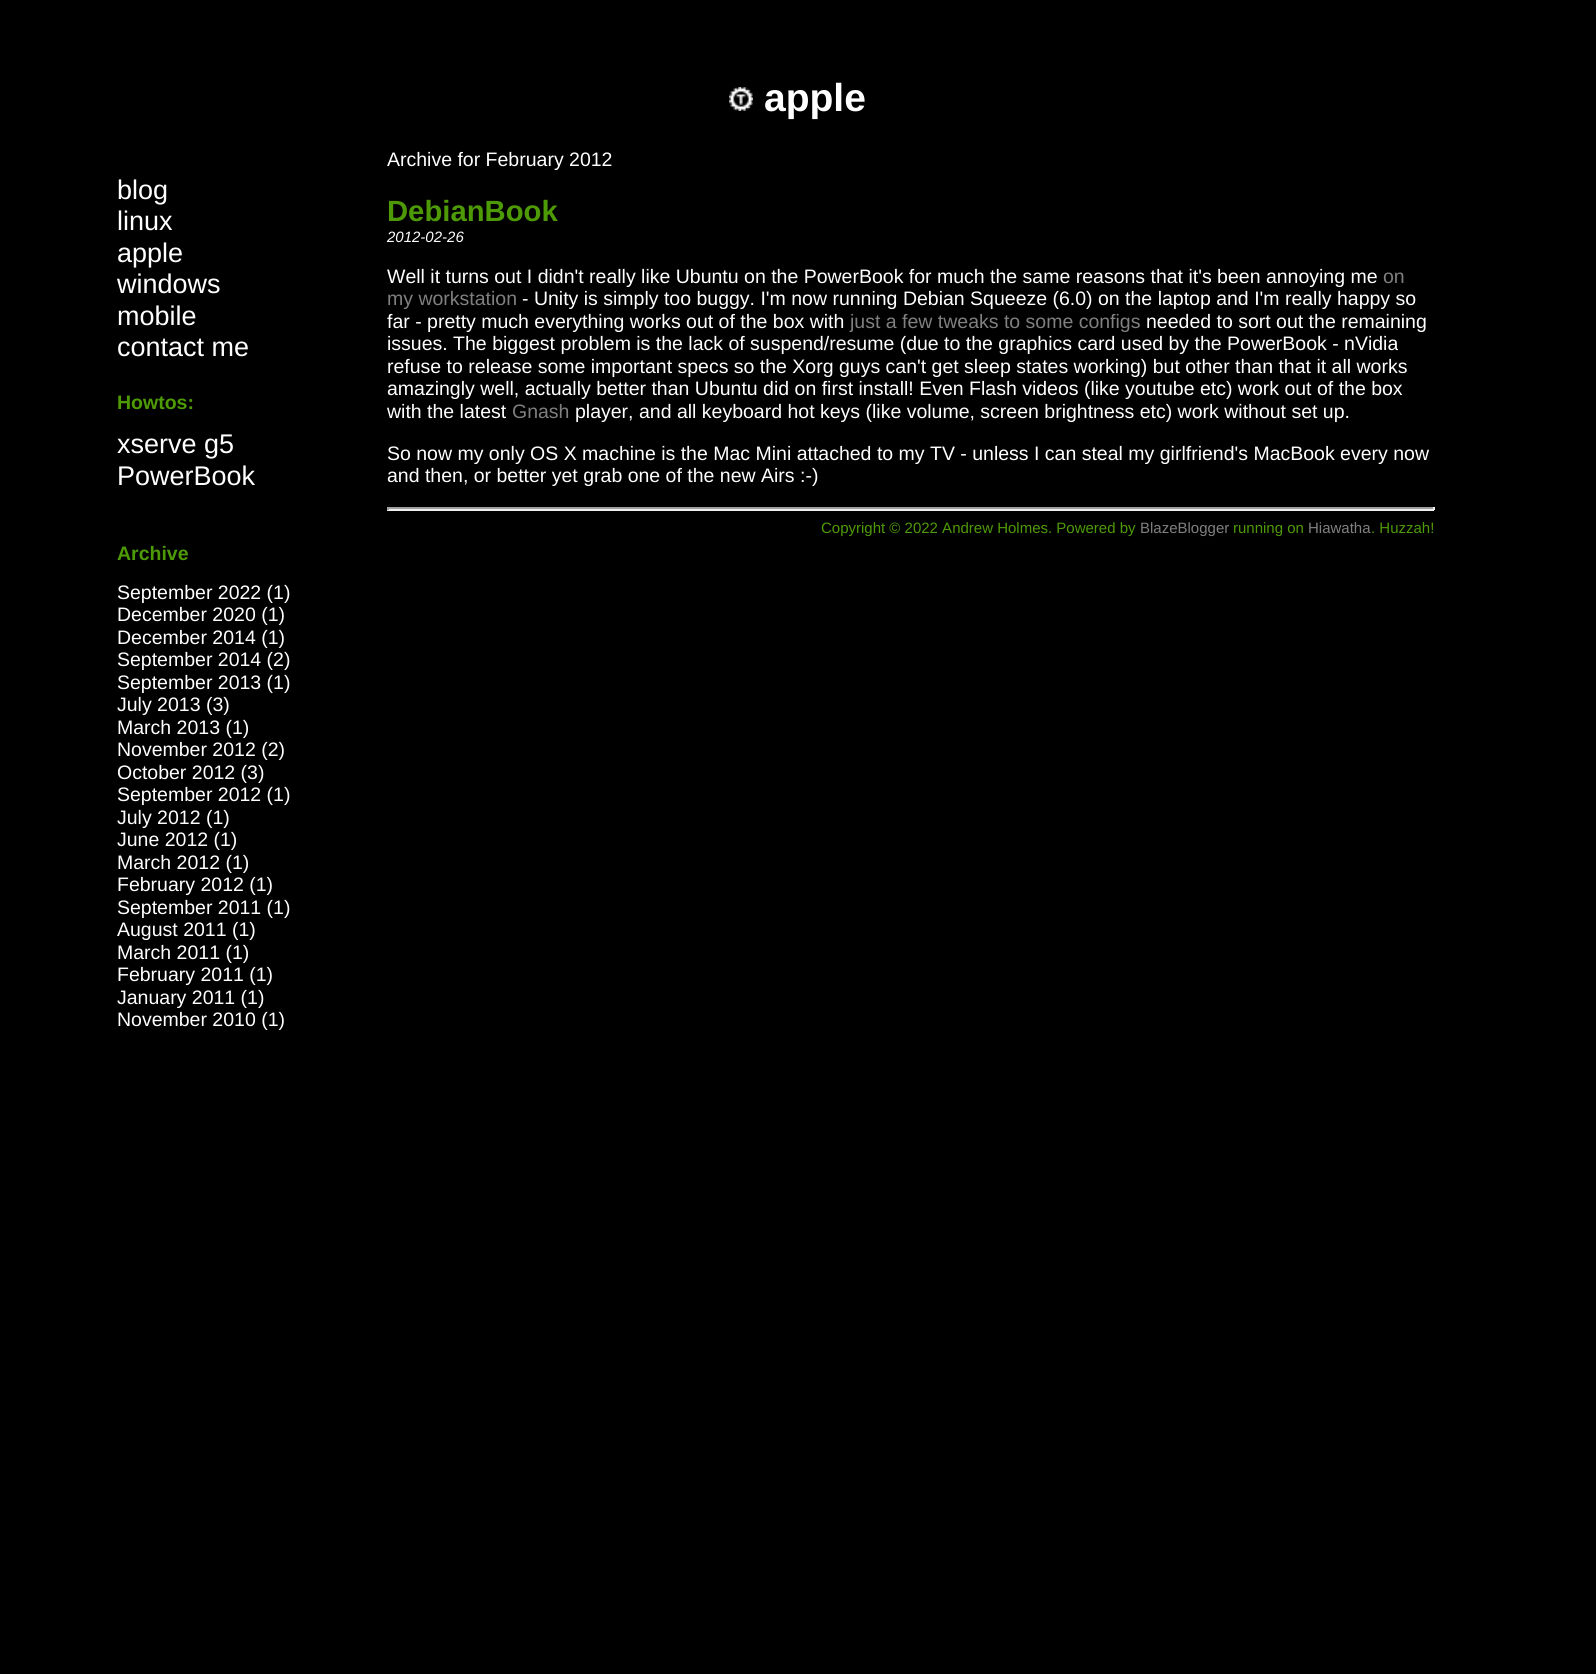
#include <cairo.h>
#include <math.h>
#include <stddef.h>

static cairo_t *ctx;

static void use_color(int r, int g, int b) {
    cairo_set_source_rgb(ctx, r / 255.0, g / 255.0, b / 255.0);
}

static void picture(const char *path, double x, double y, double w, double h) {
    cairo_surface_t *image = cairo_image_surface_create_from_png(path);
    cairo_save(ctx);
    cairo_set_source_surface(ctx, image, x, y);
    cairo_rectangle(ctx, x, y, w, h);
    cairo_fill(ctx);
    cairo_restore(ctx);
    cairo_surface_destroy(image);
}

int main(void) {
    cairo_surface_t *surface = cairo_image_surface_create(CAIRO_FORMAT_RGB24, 1596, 1674);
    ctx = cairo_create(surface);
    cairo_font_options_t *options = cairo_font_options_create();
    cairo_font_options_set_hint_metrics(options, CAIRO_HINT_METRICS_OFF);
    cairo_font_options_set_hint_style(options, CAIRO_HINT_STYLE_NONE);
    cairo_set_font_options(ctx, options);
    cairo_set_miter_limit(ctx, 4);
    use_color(0, 0, 0);
    cairo_paint(ctx);
    picture("img1.png", 729, 87, 24, 24);
    cairo_select_font_face(ctx, "Liberation Sans", CAIRO_FONT_SLANT_NORMAL, CAIRO_FONT_WEIGHT_BOLD);
    cairo_set_font_size(ctx, 39);
    use_color(255, 255, 255);
    cairo_move_to(ctx, 764, 111);
    cairo_show_text(ctx, "apple");
    cairo_select_font_face(ctx, "Liberation Sans", CAIRO_FONT_SLANT_NORMAL, CAIRO_FONT_WEIGHT_NORMAL);
    cairo_set_font_size(ctx, 27);
    cairo_move_to(ctx, 117, 199);
    cairo_show_text(ctx, "blog");
    cairo_move_to(ctx, 117, 230);
    cairo_show_text(ctx, "linux");
    cairo_move_to(ctx, 117, 262);
    cairo_show_text(ctx, "apple");
    cairo_move_to(ctx, 117, 293);
    cairo_show_text(ctx, "windows");
    cairo_move_to(ctx, 117, 325);
    cairo_show_text(ctx, "mobile");
    cairo_move_to(ctx, 117, 356);
    cairo_show_text(ctx, "contact me");
    cairo_select_font_face(ctx, "Liberation Sans", CAIRO_FONT_SLANT_NORMAL, CAIRO_FONT_WEIGHT_BOLD);
    cairo_set_font_size(ctx, 19.5);
    use_color(78, 154, 6);
    cairo_move_to(ctx, 117, 409);
    cairo_show_text(ctx, "Howtos:");
    cairo_select_font_face(ctx, "Liberation Sans", CAIRO_FONT_SLANT_NORMAL, CAIRO_FONT_WEIGHT_NORMAL);
    cairo_set_font_size(ctx, 27);
    use_color(255, 255, 255);
    cairo_move_to(ctx, 117, 453);
    cairo_show_text(ctx, "xserve g5");
    cairo_move_to(ctx, 117, 485);
    cairo_show_text(ctx, "PowerBook");
    cairo_set_font_size(ctx, 19.5);
    cairo_move_to(ctx, 387, 166);
    cairo_show_text(ctx, "Archive for February 2012");
    cairo_select_font_face(ctx, "Liberation Sans", CAIRO_FONT_SLANT_NORMAL, CAIRO_FONT_WEIGHT_BOLD);
    cairo_set_font_size(ctx, 29.25);
    use_color(78, 154, 6);
    cairo_move_to(ctx, 387, 221);
    cairo_show_text(ctx, "DebianBook");
    cairo_select_font_face(ctx, "Liberation Sans", CAIRO_FONT_SLANT_ITALIC, CAIRO_FONT_WEIGHT_NORMAL);
    cairo_set_font_size(ctx, 15);
    use_color(255, 255, 255);
    cairo_move_to(ctx, 387, 242);
    cairo_show_text(ctx, "2012-02-26");
    cairo_select_font_face(ctx, "Liberation Sans", CAIRO_FONT_SLANT_NORMAL, CAIRO_FONT_WEIGHT_NORMAL);
    cairo_set_font_size(ctx, 19.5);
    cairo_move_to(ctx, 387, 283);
    cairo_show_text(ctx, "Well it turns out I didn't really like Ubuntu on the PowerBook for much the same reasons that it's been annoying me");
    use_color(128, 128, 128);
    cairo_move_to(ctx, 1383, 283);
    cairo_show_text(ctx, "on");
    cairo_move_to(ctx, 387, 305);
    cairo_show_text(ctx, "my workstation");
    use_color(255, 255, 255);
    cairo_move_to(ctx, 522, 305);
    cairo_show_text(ctx, "- Unity is simply too buggy. I'm now running Debian Squeeze (6.0) on the laptop and I'm really happy so");
    cairo_move_to(ctx, 387, 328);
    cairo_show_text(ctx, "far - pretty much everything works out of the box with");
    use_color(128, 128, 128);
    cairo_move_to(ctx, 850, 328);
    cairo_show_text(ctx, "just a few tweaks to some configs");
    use_color(255, 255, 255);
    cairo_move_to(ctx, 1146, 328);
    cairo_show_text(ctx, "needed to sort out the remaining");
    cairo_move_to(ctx, 387, 350);
    cairo_show_text(ctx, "issues. The biggest problem is the lack of suspend/resume (due to the graphics card used by the PowerBook - nVidia");
    cairo_move_to(ctx, 387, 373);
    cairo_show_text(ctx, "refuse to release some important specs so the Xorg guys can't get sleep states working) but other than that it all works");
    cairo_move_to(ctx, 387, 395);
    cairo_show_text(ctx, "amazingly well, actually better than Ubuntu did on first install! Even Flash videos (like youtube etc) work out of the box");
    cairo_move_to(ctx, 387, 418);
    cairo_show_text(ctx, "with the latest");
    use_color(128, 128, 128);
    cairo_move_to(ctx, 512, 418);
    cairo_show_text(ctx, "Gnash");
    use_color(255, 255, 255);
    cairo_move_to(ctx, 575, 418);
    cairo_show_text(ctx, "player, and all keyboard hot keys (like volume, screen brightness etc) work without set up.");
    cairo_move_to(ctx, 387, 460);
    cairo_show_text(ctx, "So now my only OS X machine is the Mac Mini attached to my TV - unless I can steal my girlfriend's MacBook every now");
    cairo_move_to(ctx, 387, 482);
    cairo_show_text(ctx, "and then, or better yet grab one of the new Airs :-)");
    use_color(159, 159, 159);
    cairo_rectangle(ctx, 387, 507, 1047, 2);
    cairo_fill(ctx);
    use_color(238, 238, 238);
    cairo_rectangle(ctx, 1433, 507, 2, 3);
    cairo_fill(ctx);
    cairo_rectangle(ctx, 387, 509, 1047, 2);
    cairo_fill(ctx);
    use_color(159, 159, 159);
    cairo_rectangle(ctx, 387, 507, 2, 3);
    cairo_fill(ctx);
    cairo_set_font_size(ctx, 15);
    use_color(78, 154, 6);
    cairo_move_to(ctx, 821, 533);
    cairo_show_text(ctx, "Copyright © 2022 Andrew Holmes. Powered by");
    use_color(128, 128, 128);
    cairo_move_to(ctx, 1140, 533);
    cairo_show_text(ctx, "BlazeBlogger");
    use_color(78, 154, 6);
    cairo_move_to(ctx, 1233, 533);
    cairo_show_text(ctx, "running on");
    use_color(128, 128, 128);
    cairo_move_to(ctx, 1308, 533);
    cairo_show_text(ctx, "Hiawatha");
    use_color(78, 154, 6);
    cairo_move_to(ctx, 1371, 533);
    cairo_show_text(ctx, ". Huzzah!");
    cairo_select_font_face(ctx, "Liberation Sans", CAIRO_FONT_SLANT_NORMAL, CAIRO_FONT_WEIGHT_BOLD);
    cairo_set_font_size(ctx, 19.5);
    cairo_move_to(ctx, 117, 560);
    cairo_show_text(ctx, "Archive");
    cairo_select_font_face(ctx, "Liberation Sans", CAIRO_FONT_SLANT_NORMAL, CAIRO_FONT_WEIGHT_NORMAL);
    use_color(255, 255, 255);
    cairo_move_to(ctx, 117, 599);
    cairo_show_text(ctx, "September 2022 (1)");
    cairo_move_to(ctx, 117, 621);
    cairo_show_text(ctx, "December 2020 (1)");
    cairo_move_to(ctx, 117, 644);
    cairo_show_text(ctx, "December 2014 (1)");
    cairo_move_to(ctx, 117, 666);
    cairo_show_text(ctx, "September 2014 (2)");
    cairo_move_to(ctx, 117, 689);
    cairo_show_text(ctx, "September 2013 (1)");
    cairo_move_to(ctx, 117, 711);
    cairo_show_text(ctx, "July 2013 (3)");
    cairo_move_to(ctx, 117, 734);
    cairo_show_text(ctx, "March 2013 (1)");
    cairo_move_to(ctx, 117, 756);
    cairo_show_text(ctx, "November 2012 (2)");
    cairo_move_to(ctx, 117, 779);
    cairo_show_text(ctx, "October 2012 (3)");
    cairo_move_to(ctx, 117, 801);
    cairo_show_text(ctx, "September 2012 (1)");
    cairo_move_to(ctx, 117, 824);
    cairo_show_text(ctx, "July 2012 (1)");
    cairo_move_to(ctx, 117, 846);
    cairo_show_text(ctx, "June 2012 (1)");
    cairo_move_to(ctx, 117, 869);
    cairo_show_text(ctx, "March 2012 (1)");
    cairo_move_to(ctx, 117, 891);
    cairo_show_text(ctx, "February 2012 (1)");
    cairo_move_to(ctx, 117, 914);
    cairo_show_text(ctx, "September 2011 (1)");
    cairo_move_to(ctx, 117, 936);
    cairo_show_text(ctx, "August 2011 (1)");
    cairo_move_to(ctx, 117, 959);
    cairo_show_text(ctx, "March 2011 (1)");
    cairo_move_to(ctx, 117, 981);
    cairo_show_text(ctx, "February 2011 (1)");
    cairo_move_to(ctx, 117, 1004);
    cairo_show_text(ctx, "January 2011 (1)");
    cairo_move_to(ctx, 117, 1026);
    cairo_show_text(ctx, "November 2010 (1)");
    cairo_surface_write_to_png(surface, "result.png");
    cairo_font_options_destroy(options);
    cairo_destroy(ctx);
    cairo_surface_destroy(surface);
    return 0;
}
